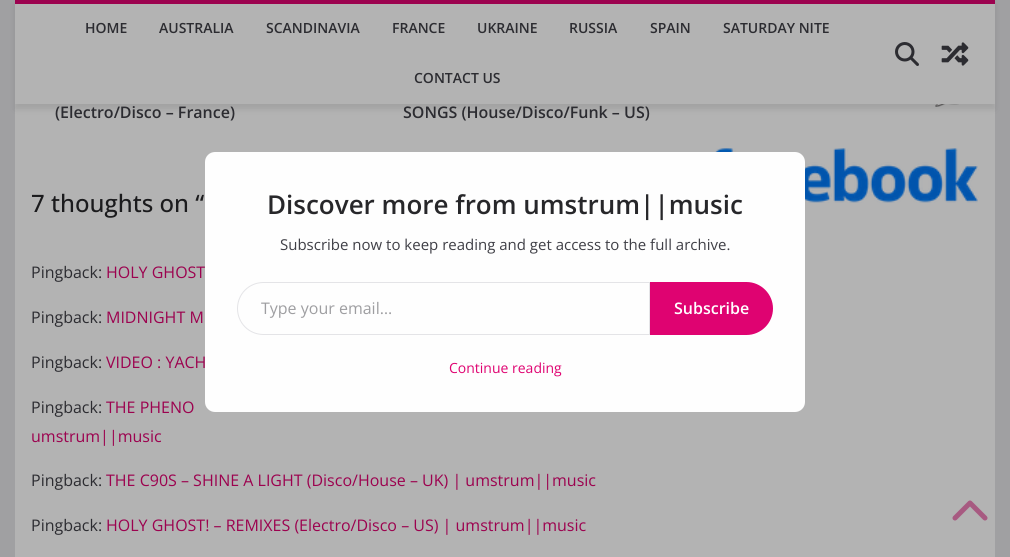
#include <cairo.h>
#include <math.h>
#include <stddef.h>

static cairo_t *ctx;

static void use_color(int r, int g, int b) {
    cairo_set_source_rgb(ctx, r / 255.0, g / 255.0, b / 255.0);
}

static void round_rect(double x, double y, double w, double h, double r) {
    cairo_new_sub_path(ctx);
    cairo_arc(ctx, x + w - r, y + h - r, r, 0, M_PI / 2);
    cairo_arc(ctx, x + r, y + h - r, r, M_PI / 2, M_PI);
    cairo_arc(ctx, x + r, y + r, r, M_PI, 1.5 * M_PI);
    cairo_arc(ctx, x + w - r, y + r, r, 1.5 * M_PI, 2 * M_PI);
    cairo_close_path(ctx);
}

static void shadow(double x, double y, double w, double h, double r, double blur, double alpha) {
    cairo_push_group_with_content(ctx, CAIRO_CONTENT_ALPHA);
    cairo_set_operator(ctx, CAIRO_OPERATOR_SOURCE);
    for (int i = 15; i >= -15 && fmin(w, h) + blur * i / 3 > 0; i -= 2) {
        double e = blur * i / 6;
        cairo_set_source_rgba(ctx, 0, 0, 0, alpha * erfc((i - 1) / 8.5) / 2);
        round_rect(x - e, y - e, w + 2 * e, h + 2 * e, fmax(0, fmin(r + e + blur * .6, fmin(w, h) / 2 + e)));
        cairo_fill(ctx);
    }
    cairo_pattern_t *soft = cairo_pop_group(ctx);
    cairo_mask(ctx, soft);
    cairo_pattern_destroy(soft);
}

static void picture(const char *path, double x, double y, double w, double h) {
    cairo_surface_t *image = cairo_image_surface_create_from_png(path);
    cairo_save(ctx);
    cairo_set_source_surface(ctx, image, x, y);
    cairo_rectangle(ctx, x, y, w, h);
    cairo_fill(ctx);
    cairo_restore(ctx);
    cairo_surface_destroy(image);
}

int main(void) {
    cairo_surface_t *surface = cairo_image_surface_create(CAIRO_FORMAT_RGB24, 1010, 557);
    ctx = cairo_create(surface);
    cairo_font_options_t *options = cairo_font_options_create();
    cairo_font_options_set_hint_metrics(options, CAIRO_HINT_METRICS_OFF);
    cairo_font_options_set_hint_style(options, CAIRO_HINT_STYLE_NONE);
    cairo_set_font_options(ctx, options);
    cairo_set_miter_limit(ctx, 4);
    use_color(160, 160, 162);
    cairo_paint(ctx);
    use_color(179, 179, 179);
    cairo_rectangle(ctx, 15, 104, 980, 453);
    cairo_fill(ctx);
    picture("img3.png", 935, 104, 24, 3);
    use_color(0, 0, 0);
    shadow(15, 5, 980, 104, 0, 3, 0.1);
    use_color(179, 179, 179);
    cairo_rectangle(ctx, 15, 4, 980, 100);
    cairo_fill(ctx);
    use_color(156, 2, 79);
    cairo_rectangle(ctx, 15, 0, 980, 4);
    cairo_fill(ctx);
    cairo_select_font_face(ctx, "Open Sans SemiBold", CAIRO_FONT_SLANT_NORMAL, CAIRO_FONT_WEIGHT_NORMAL);
    cairo_set_font_size(ctx, 14);
    use_color(44, 44, 49);
    cairo_move_to(ctx, 85, 33);
    cairo_show_text(ctx, "HOME");
    cairo_move_to(ctx, 159, 33);
    cairo_show_text(ctx, "AUSTRALIA");
    cairo_move_to(ctx, 266, 33);
    cairo_show_text(ctx, "SCANDINAVIA");
    cairo_move_to(ctx, 392, 33);
    cairo_show_text(ctx, "FRANCE");
    cairo_move_to(ctx, 477, 33);
    cairo_show_text(ctx, "UKRAINE");
    cairo_move_to(ctx, 569, 33);
    cairo_show_text(ctx, "RUSSIA");
    cairo_move_to(ctx, 650, 33);
    cairo_show_text(ctx, "SPAIN");
    cairo_move_to(ctx, 723, 33);
    cairo_show_text(ctx, "SATURDAY NITE");
    cairo_move_to(ctx, 414, 83);
    cairo_show_text(ctx, "CONTACT US");
    picture("img1.png", 895, 42, 24, 24);
    picture("img2.png", 941, 42, 28, 24);
    cairo_set_font_size(ctx, 16);
    cairo_move_to(ctx, 55, 118);
    cairo_show_text(ctx, "(Electro/Disco – France)");
    cairo_move_to(ctx, 403, 118);
    cairo_show_text(ctx, "SONGS (House/Disco/Funk – US)");
    cairo_select_font_face(ctx, "Open Sans Medium", CAIRO_FONT_SLANT_NORMAL, CAIRO_FONT_WEIGHT_NORMAL);
    cairo_set_font_size(ctx, 24);
    use_color(27, 27, 29);
    cairo_move_to(ctx, 31, 212);
    cairo_show_text(ctx, "7 thoughts on “");
    cairo_select_font_face(ctx, "Open Sans", CAIRO_FONT_SLANT_NORMAL, CAIRO_FONT_WEIGHT_NORMAL);
    cairo_set_font_size(ctx, 16);
    use_color(44, 44, 49);
    cairo_move_to(ctx, 31, 278);
    cairo_show_text(ctx, "Pingback:");
    use_color(156, 2, 79);
    cairo_move_to(ctx, 106, 278);
    cairo_show_text(ctx, "HOLY GHOST");
    use_color(44, 44, 49);
    cairo_move_to(ctx, 31, 323);
    cairo_show_text(ctx, "Pingback:");
    use_color(156, 2, 79);
    cairo_move_to(ctx, 106, 323);
    cairo_show_text(ctx, "MIDNIGHT M");
    use_color(44, 44, 49);
    cairo_move_to(ctx, 31, 368);
    cairo_show_text(ctx, "Pingback:");
    use_color(156, 2, 79);
    cairo_move_to(ctx, 106, 368);
    cairo_show_text(ctx, "VIDEO : YACH");
    use_color(44, 44, 49);
    cairo_move_to(ctx, 31, 413);
    cairo_show_text(ctx, "Pingback:");
    use_color(156, 2, 79);
    cairo_move_to(ctx, 106, 413);
    cairo_show_text(ctx, "THE PHENO");
    cairo_move_to(ctx, 31, 442);
    cairo_show_text(ctx, "umstrum||music");
    use_color(44, 44, 49);
    cairo_move_to(ctx, 31, 486);
    cairo_show_text(ctx, "Pingback:");
    use_color(156, 2, 79);
    cairo_move_to(ctx, 106, 486);
    cairo_show_text(ctx, "THE C90S – SHINE A LIGHT (Disco/House – UK) | umstrum||music");
    use_color(44, 44, 49);
    cairo_move_to(ctx, 31, 531);
    cairo_show_text(ctx, "Pingback:");
    use_color(156, 2, 79);
    cairo_move_to(ctx, 106, 531);
    cairo_show_text(ctx, "HOLY GHOST! – REMIXES (Electro/Disco – US) | umstrum||music");
    picture("img4.png", 715, 148, 264, 55);
    picture("img5.png", 952, 500, 36, 21);
    use_color(254, 254, 254);
    round_rect(205, 152, 600, 260, 10);
    cairo_fill(ctx);
    cairo_select_font_face(ctx, "Open Sans SemiBold", CAIRO_FONT_SLANT_NORMAL, CAIRO_FONT_WEIGHT_NORMAL);
    cairo_set_font_size(ctx, 26);
    use_color(39, 39, 42);
    cairo_move_to(ctx, 267, 214);
    cairo_show_text(ctx, "Discover more from umstrum||music");
    cairo_select_font_face(ctx, "Open Sans", CAIRO_FONT_SLANT_NORMAL, CAIRO_FONT_WEIGHT_NORMAL);
    cairo_set_font_size(ctx, 15);
    use_color(63, 63, 70);
    cairo_move_to(ctx, 280, 250);
    cairo_show_text(ctx, "Subscribe now to keep reading and get access to the full archive.");
    cairo_new_path(ctx);
    cairo_move_to(ctx, 263.5, 282.5);
    cairo_line_to(ctx, 649.5, 282.5);
    cairo_line_to(ctx, 649.5, 334.5);
    cairo_line_to(ctx, 263.5, 334.5);
    cairo_curve_to(ctx, 249, 334.5, 237.5, 323, 237.5, 308.5);
    cairo_curve_to(ctx, 237.5, 294, 249, 282.5, 263.5, 282.5);
    cairo_close_path(ctx);
    use_color(228, 228, 231);
    cairo_set_line_width(ctx, 1);
    cairo_stroke(ctx);
    cairo_set_font_size(ctx, 16);
    use_color(158, 158, 161);
    cairo_move_to(ctx, 261, 314);
    cairo_show_text(ctx, "Type your email…");
    use_color(223, 3, 113);
    cairo_new_path(ctx);
    cairo_move_to(ctx, 650, 282);
    cairo_line_to(ctx, 746.5, 282);
    cairo_curve_to(ctx, 761, 282, 773, 294, 773, 308.5);
    cairo_curve_to(ctx, 773, 323, 761, 335, 746.5, 335);
    cairo_line_to(ctx, 650, 335);
    cairo_close_path(ctx);
    cairo_fill(ctx);
    cairo_select_font_face(ctx, "Open Sans SemiBold", CAIRO_FONT_SLANT_NORMAL, CAIRO_FONT_WEIGHT_NORMAL);
    use_color(255, 255, 255);
    cairo_move_to(ctx, 674, 314);
    cairo_show_text(ctx, "Subscribe");
    cairo_select_font_face(ctx, "Open Sans", CAIRO_FONT_SLANT_NORMAL, CAIRO_FONT_WEIGHT_NORMAL);
    cairo_set_font_size(ctx, 14);
    use_color(223, 3, 113);
    cairo_move_to(ctx, 449, 373);
    cairo_show_text(ctx, "Continue reading");
    cairo_surface_write_to_png(surface, "result.png");
    cairo_font_options_destroy(options);
    cairo_destroy(ctx);
    cairo_surface_destroy(surface);
    return 0;
}
